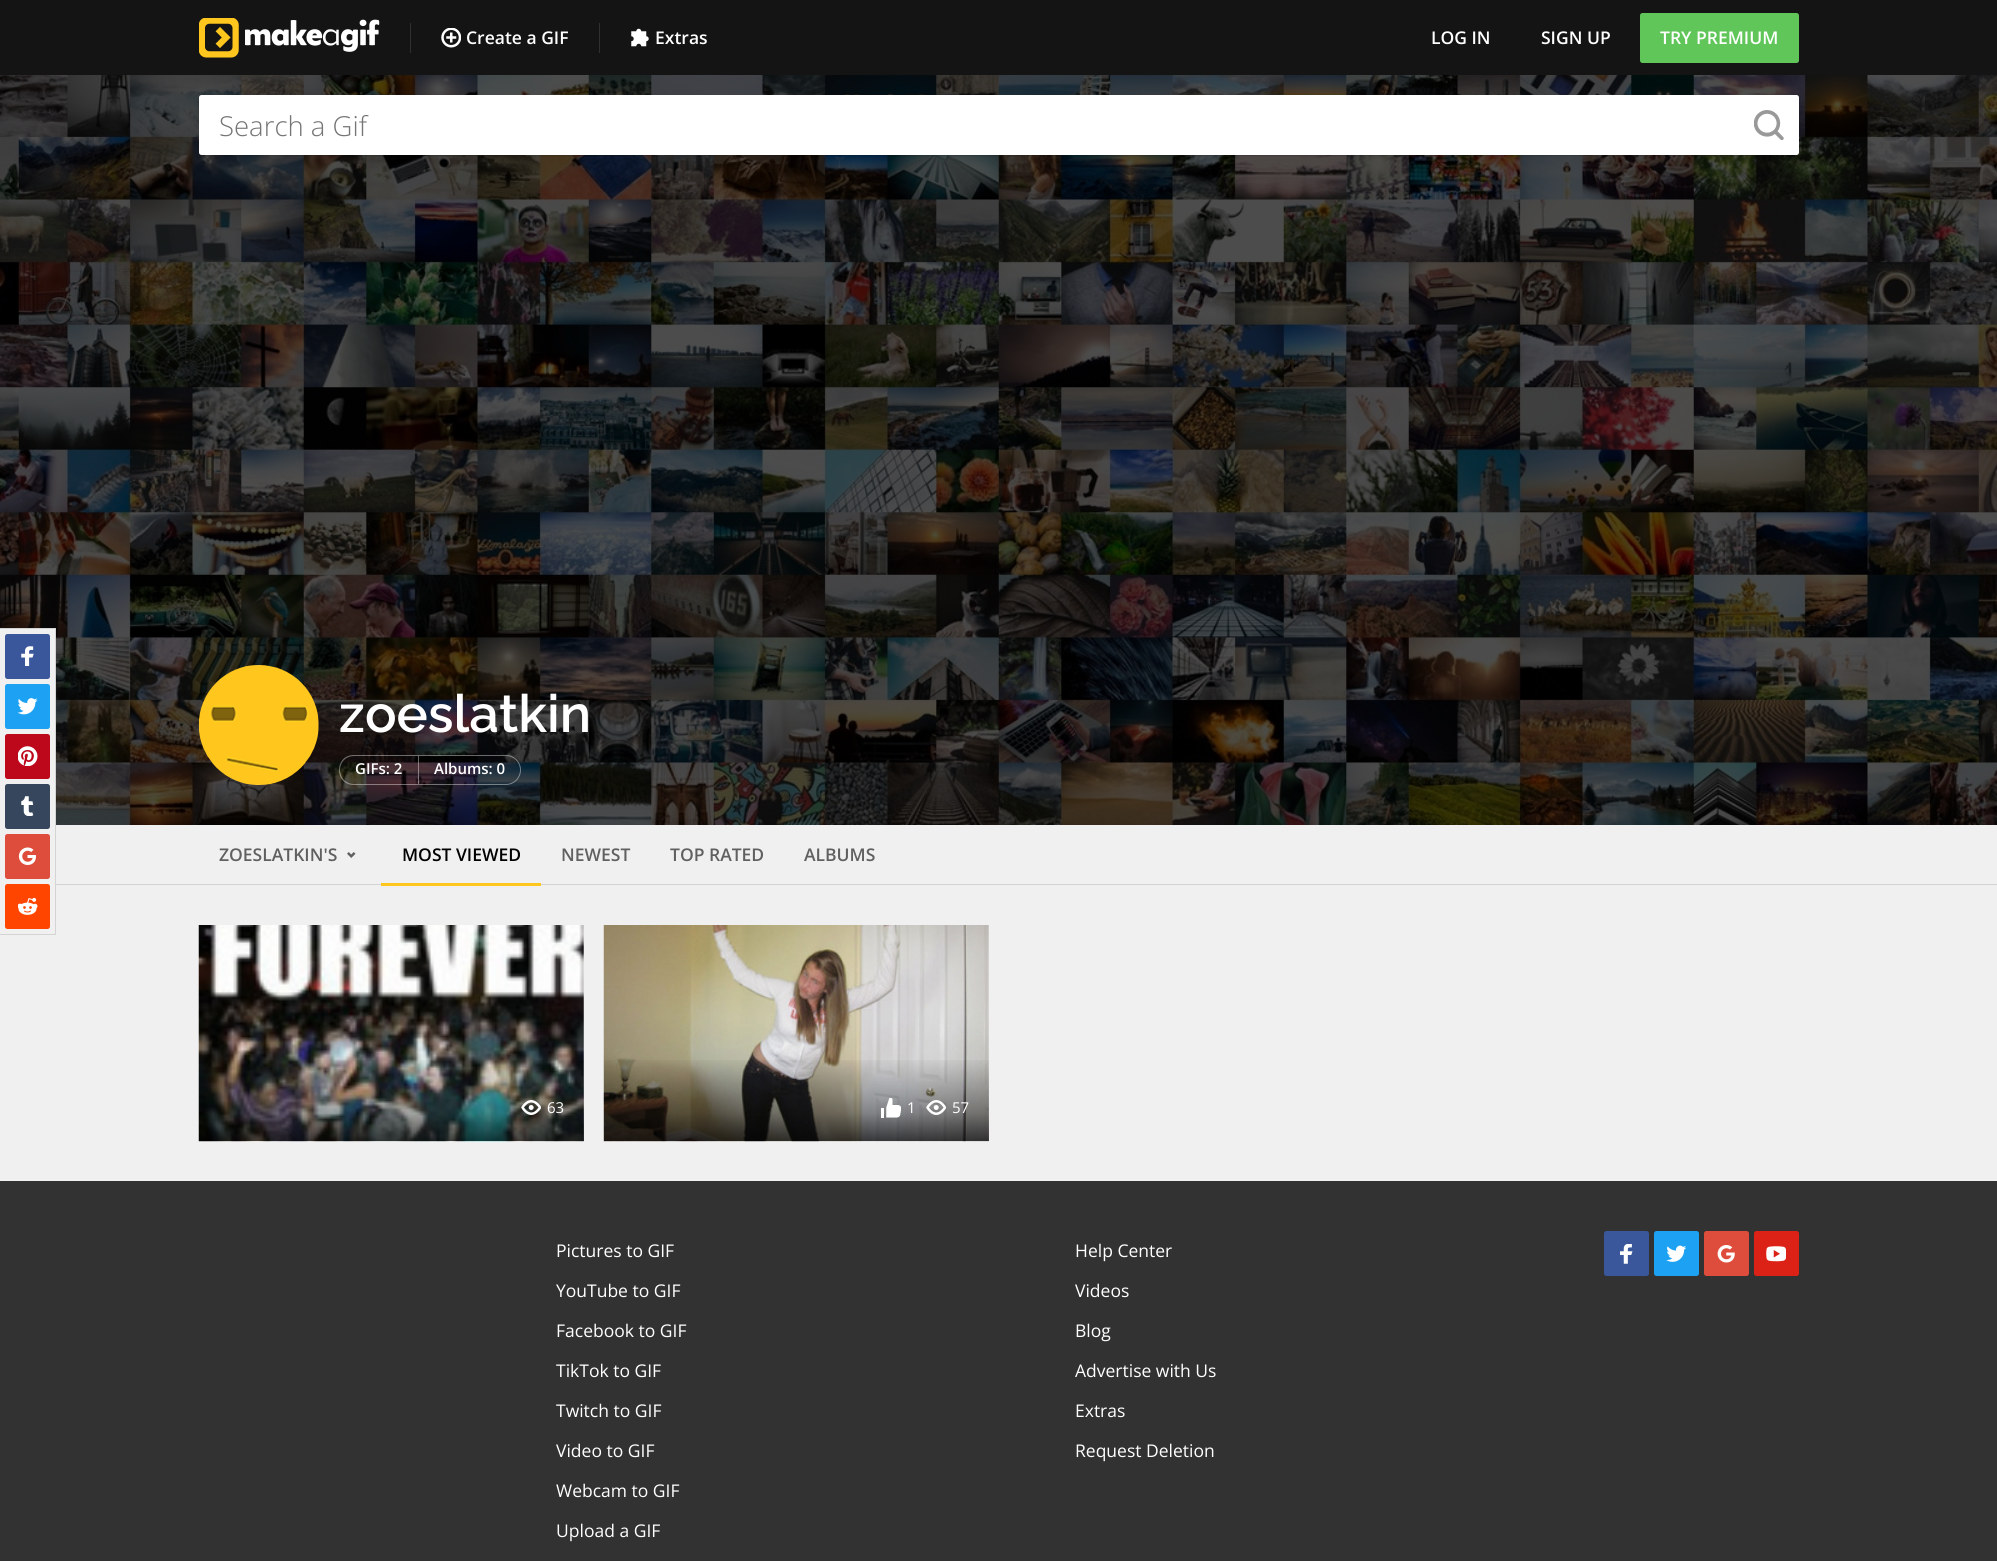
#include <cairo.h>
#include <math.h>
#include <stddef.h>

static cairo_t *ctx;

static void use_color(int r, int g, int b) {
    cairo_set_source_rgb(ctx, r / 255.0, g / 255.0, b / 255.0);
}

static void round_rect(double x, double y, double w, double h, double r) {
    cairo_new_sub_path(ctx);
    cairo_arc(ctx, x + w - r, y + h - r, r, 0, M_PI / 2);
    cairo_arc(ctx, x + r, y + h - r, r, M_PI / 2, M_PI);
    cairo_arc(ctx, x + r, y + r, r, M_PI, 1.5 * M_PI);
    cairo_arc(ctx, x + w - r, y + r, r, 1.5 * M_PI, 2 * M_PI);
    cairo_close_path(ctx);
}

static void shadow(double x, double y, double w, double h, double r, double blur, double alpha) {
    cairo_push_group_with_content(ctx, CAIRO_CONTENT_ALPHA);
    cairo_set_operator(ctx, CAIRO_OPERATOR_SOURCE);
    for (int i = 15; i >= -15 && fmin(w, h) + blur * i / 3 > 0; i -= 2) {
        double e = blur * i / 6;
        cairo_set_source_rgba(ctx, 0, 0, 0, alpha * erfc((i - 1) / 8.5) / 2);
        round_rect(x - e, y - e, w + 2 * e, h + 2 * e, fmax(0, fmin(r + e + blur * .6, fmin(w, h) / 2 + e)));
        cairo_fill(ctx);
    }
    cairo_pattern_t *soft = cairo_pop_group(ctx);
    cairo_mask(ctx, soft);
    cairo_pattern_destroy(soft);
}

static void picture(const char *path, double x, double y, double w, double h) {
    cairo_surface_t *image = cairo_image_surface_create_from_png(path);
    cairo_save(ctx);
    cairo_set_source_surface(ctx, image, x, y);
    cairo_rectangle(ctx, x, y, w, h);
    cairo_fill(ctx);
    cairo_restore(ctx);
    cairo_surface_destroy(image);
}

int main(void) {
    cairo_surface_t *surface = cairo_image_surface_create(CAIRO_FORMAT_RGB24, 1997, 1561);
    ctx = cairo_create(surface);
    cairo_font_options_t *options = cairo_font_options_create();
    cairo_font_options_set_hint_metrics(options, CAIRO_HINT_METRICS_OFF);
    cairo_font_options_set_hint_style(options, CAIRO_HINT_STYLE_NONE);
    cairo_set_font_options(ctx, options);
    cairo_set_miter_limit(ctx, 4);
    cairo_pattern_t *gradient;
    use_color(240, 240, 240);
    cairo_paint(ctx);
    use_color(20, 20, 20);
    cairo_rectangle(ctx, 0, 0, 1997, 75);
    cairo_fill(ctx);
    picture("img1.png", 199, 18, 181, 40);
    use_color(48, 48, 48);
    cairo_rectangle(ctx, 410, 23, 1, 30);
    cairo_fill(ctx);
    picture("img2.png", 441, 28, 20, 20);
    cairo_select_font_face(ctx, "Open Sans SemiBold", CAIRO_FONT_SLANT_NORMAL, CAIRO_FONT_WEIGHT_NORMAL);
    cairo_set_font_size(ctx, 17.5);
    use_color(255, 255, 255);
    cairo_move_to(ctx, 466, 44);
    cairo_show_text(ctx, "Create a GIF");
    use_color(48, 48, 48);
    cairo_rectangle(ctx, 599, 23, 1, 30);
    cairo_fill(ctx);
    picture("img3.png", 631, 28, 18, 19);
    use_color(255, 255, 255);
    cairo_move_to(ctx, 655, 44);
    cairo_show_text(ctx, "Extras");
    cairo_move_to(ctx, 1431, 44);
    cairo_show_text(ctx, "LOG IN");
    cairo_move_to(ctx, 1541, 44);
    cairo_show_text(ctx, "SIGN UP");
    use_color(96, 198, 89);
    round_rect(1640, 13, 159, 50, 2.5);
    cairo_fill(ctx);
    use_color(255, 255, 255);
    cairo_move_to(ctx, 1660, 44);
    cairo_show_text(ctx, "TRY PREMIUM");
    picture("img10.png", 0, 75, 1997, 750);
    use_color(240, 240, 240);
    cairo_rectangle(ctx, 0, 628, 56, 197);
    cairo_fill(ctx);
    use_color(211, 211, 211);
    cairo_new_path(ctx);
    cairo_move_to(ctx, 0, 628);
    cairo_line_to(ctx, 56, 628);
    cairo_line_to(ctx, 55, 629);
    cairo_line_to(ctx, 0, 629);
    cairo_close_path(ctx);
    cairo_fill(ctx);
    cairo_set_source_rgba(ctx, 0, 0, 0, 0.12);
    cairo_new_path(ctx);
    cairo_move_to(ctx, 56, 628);
    cairo_line_to(ctx, 56, 935);
    cairo_line_to(ctx, 55, 934);
    cairo_line_to(ctx, 55, 629);
    cairo_close_path(ctx);
    cairo_fill(ctx);
    cairo_new_path(ctx);
    cairo_move_to(ctx, 56, 935);
    cairo_line_to(ctx, 0, 935);
    cairo_line_to(ctx, 0, 934);
    cairo_line_to(ctx, 55, 934);
    cairo_close_path(ctx);
    cairo_fill(ctx);
    use_color(57, 87, 154);
    round_rect(5, 634, 45, 45, 2.5);
    cairo_fill(ctx);
    picture("img4.png", 21, 646, 13, 20);
    use_color(29, 161, 242);
    round_rect(5, 684, 45, 45, 2.5);
    cairo_fill(ctx);
    picture("img5.png", 18, 698, 20, 17);
    use_color(189, 8, 28);
    round_rect(5, 734, 45, 45, 2.5);
    cairo_fill(ctx);
    picture("img6.png", 18, 746, 20, 20);
    use_color(53, 70, 93);
    round_rect(5, 784, 45, 45, 2.5);
    cairo_fill(ctx);
    picture("img7.png", 21, 796, 13, 20);
    use_color(222, 77, 59);
    round_rect(5, 834, 45, 45, 2.5);
    cairo_fill(ctx);
    picture("img8.png", 18, 847, 18, 18);
    use_color(255, 69, 0);
    round_rect(5, 884, 45, 45, 2.5);
    cairo_fill(ctx);
    picture("img9.png", 18, 897, 20, 18);
    use_color(0, 0, 0);
    shadow(201, 101, 1595, 55, 0, 0.5, 0.15);
    use_color(255, 255, 255);
    round_rect(199, 95, 1600, 60, 2.5);
    cairo_fill(ctx);
    cairo_select_font_face(ctx, "Open Sans Light", CAIRO_FONT_SLANT_NORMAL, CAIRO_FONT_WEIGHT_NORMAL);
    cairo_set_font_size(ctx, 27.5);
    use_color(117, 117, 117);
    cairo_move_to(ctx, 219, 136);
    cairo_show_text(ctx, "Search a Gif");
    picture("img11.png", 1754, 110, 30, 30);
    picture("img12.png", 198, 665, 121, 120);
    cairo_select_font_face(ctx, "Raleway SemiBold", CAIRO_FONT_SLANT_NORMAL, CAIRO_FONT_WEIGHT_NORMAL);
    cairo_set_font_size(ctx, 52.5);
    use_color(255, 255, 255);
    cairo_move_to(ctx, 339, 732);
    cairo_show_text(ctx, "zoeslatkin");
    cairo_set_source_rgba(ctx, 1, 1, 1, 0.4);
    cairo_set_fill_rule(ctx, CAIRO_FILL_RULE_EVEN_ODD);
    cairo_new_path(ctx);
    cairo_move_to(ctx, 354, 755);
    cairo_line_to(ctx, 418, 755);
    cairo_line_to(ctx, 418, 785);
    cairo_line_to(ctx, 354, 785);
    cairo_curve_to(ctx, 334, 785, 334, 755, 354, 755);
    cairo_close_path(ctx);
    cairo_move_to(ctx, 354, 756);
    cairo_line_to(ctx, 418, 756);
    cairo_line_to(ctx, 418, 784);
    cairo_line_to(ctx, 354, 784);
    cairo_curve_to(ctx, 346, 784, 340, 778, 340, 770);
    cairo_curve_to(ctx, 340, 762, 346, 756, 354, 756);
    cairo_close_path(ctx);
    cairo_fill(ctx);
    cairo_select_font_face(ctx, "Open Sans SemiBold", CAIRO_FONT_SLANT_NORMAL, CAIRO_FONT_WEIGHT_NORMAL);
    cairo_set_font_size(ctx, 15);
    use_color(255, 255, 255);
    cairo_move_to(ctx, 355, 774);
    cairo_show_text(ctx, "GIFs: 2");
    cairo_new_path(ctx);
    cairo_move_to(ctx, 418.5, 755.5);
    cairo_line_to(ctx, 506, 755.5);
    cairo_curve_to(ctx, 514, 755.5, 520.5, 762, 520.5, 770);
    cairo_curve_to(ctx, 520.5, 778, 514, 784.5, 506, 784.5);
    cairo_line_to(ctx, 418.5, 784.5);
    cairo_close_path(ctx);
    cairo_set_source_rgba(ctx, 1, 1, 1, 0.4);
    cairo_set_line_width(ctx, 1);
    cairo_stroke(ctx);
    use_color(255, 255, 255);
    cairo_move_to(ctx, 434, 774);
    cairo_show_text(ctx, "Albums: 0");
    use_color(211, 211, 211);
    cairo_rectangle(ctx, 56, 884, 1941, 1);
    cairo_fill(ctx);
    cairo_set_font_size(ctx, 17.5);
    use_color(96, 96, 96);
    cairo_move_to(ctx, 219, 861);
    cairo_show_text(ctx, "ZOESLATKIN'S");
    picture("img13.png", 347, 852, 9, 6);
    use_color(255, 198, 30);
    cairo_rectangle(ctx, 381, 883, 160, 3);
    cairo_fill(ctx);
    use_color(0, 0, 0);
    cairo_move_to(ctx, 402, 861);
    cairo_show_text(ctx, "MOST VIEWED");
    use_color(96, 96, 96);
    cairo_move_to(ctx, 561, 861);
    cairo_show_text(ctx, "NEWEST");
    cairo_move_to(ctx, 670, 861);
    cairo_show_text(ctx, "TOP RATED");
    cairo_move_to(ctx, 804, 861);
    cairo_show_text(ctx, "ALBUMS");
    picture("img14.png", 198, 925, 386, 217);
    gradient = cairo_pattern_create_linear(391, 1141, 391, 1056);
    cairo_pattern_add_color_stop_rgba(gradient, 0, 0, 0, 0, 0.7);
    cairo_pattern_add_color_stop_rgba(gradient, 0.33, 0, 0, 0, 0.35);
    cairo_pattern_add_color_stop_rgba(gradient, 1, 0, 0, 0, 0);
    cairo_set_source(ctx, gradient);
    cairo_pattern_destroy(gradient);
    cairo_rectangle(ctx, 199, 1060, 385, 81);
    cairo_fill(ctx);
    picture("img15.png", 521, 1100, 20, 15);
    cairo_select_font_face(ctx, "Open Sans", CAIRO_FONT_SLANT_NORMAL, CAIRO_FONT_WEIGHT_NORMAL);
    cairo_set_font_size(ctx, 15);
    use_color(255, 255, 255);
    cairo_move_to(ctx, 547, 1113);
    cairo_show_text(ctx, "63");
    picture("img16.png", 603, 925, 386, 217);
    gradient = cairo_pattern_create_linear(796, 1141, 796, 1056);
    cairo_pattern_add_color_stop_rgba(gradient, 0, 0, 0, 0, 0.7);
    cairo_pattern_add_color_stop_rgba(gradient, 0.33, 0, 0, 0, 0.35);
    cairo_pattern_add_color_stop_rgba(gradient, 1, 0, 0, 0, 0);
    cairo_set_source(ctx, gradient);
    cairo_pattern_destroy(gradient);
    cairo_rectangle(ctx, 604, 1060, 385, 81);
    cairo_fill(ctx);
    picture("img17.png", 881, 1098, 20, 20);
    use_color(255, 255, 255);
    cairo_move_to(ctx, 907, 1113);
    cairo_show_text(ctx, "1");
    picture("img18.png", 926, 1100, 20, 15);
    cairo_move_to(ctx, 952, 1113);
    cairo_show_text(ctx, "57");
    use_color(50, 50, 50);
    cairo_rectangle(ctx, 0, 1181, 1997, 380);
    cairo_fill(ctx);
    cairo_set_font_size(ctx, 17.5);
    use_color(255, 255, 255);
    cairo_move_to(ctx, 556, 1257);
    cairo_show_text(ctx, "Pictures to GIF");
    cairo_move_to(ctx, 556, 1297);
    cairo_show_text(ctx, "YouTube to GIF");
    cairo_move_to(ctx, 556, 1337);
    cairo_show_text(ctx, "Facebook to GIF");
    cairo_move_to(ctx, 556, 1377);
    cairo_show_text(ctx, "TikTok to GIF");
    cairo_move_to(ctx, 556, 1417);
    cairo_show_text(ctx, "Twitch to GIF");
    cairo_move_to(ctx, 556, 1457);
    cairo_show_text(ctx, "Video to GIF");
    cairo_move_to(ctx, 556, 1497);
    cairo_show_text(ctx, "Webcam to GIF");
    cairo_move_to(ctx, 556, 1537);
    cairo_show_text(ctx, "Upload a GIF");
    cairo_move_to(ctx, 1075, 1257);
    cairo_show_text(ctx, "Help Center");
    cairo_move_to(ctx, 1075, 1297);
    cairo_show_text(ctx, "Videos");
    cairo_move_to(ctx, 1075, 1337);
    cairo_show_text(ctx, "Blog");
    cairo_move_to(ctx, 1075, 1377);
    cairo_show_text(ctx, "Advertise with Us");
    cairo_move_to(ctx, 1075, 1417);
    cairo_show_text(ctx, "Extras");
    cairo_move_to(ctx, 1075, 1457);
    cairo_show_text(ctx, "Request Deletion");
    use_color(57, 87, 154);
    round_rect(1604, 1231, 45, 45, 2.5);
    cairo_fill(ctx);
    picture("img19.png", 1620, 1244, 13, 20);
    use_color(29, 161, 242);
    round_rect(1654, 1231, 45, 45, 2.5);
    cairo_fill(ctx);
    picture("img20.png", 1666, 1245, 20, 17);
    use_color(222, 77, 59);
    round_rect(1704, 1231, 45, 45, 2.5);
    cairo_fill(ctx);
    picture("img21.png", 1717, 1245, 18, 18);
    use_color(220, 34, 23);
    round_rect(1754, 1231, 45, 45, 2.5);
    cairo_fill(ctx);
    picture("img22.png", 1766, 1246, 20, 16);
    cairo_surface_write_to_png(surface, "result.png");
    cairo_font_options_destroy(options);
    cairo_destroy(ctx);
    cairo_surface_destroy(surface);
    return 0;
}
